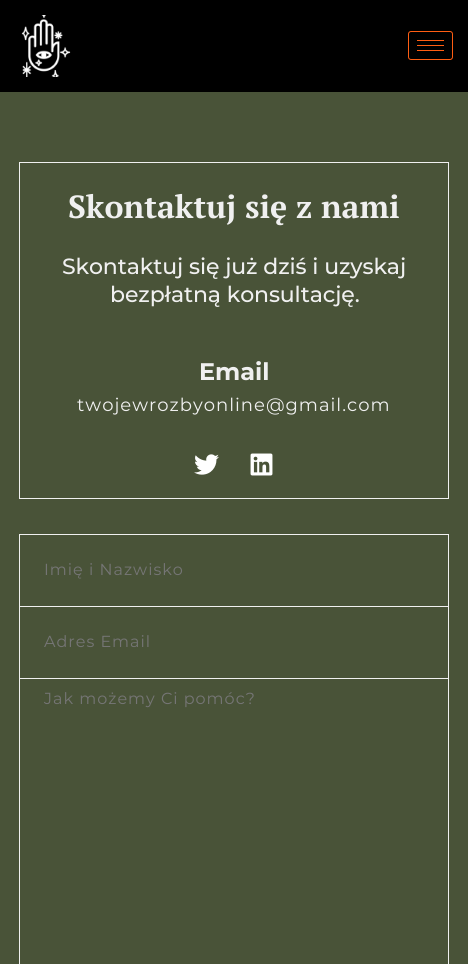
#include <cairo.h>
#include <math.h>
#include <stddef.h>

static cairo_t *ctx;

static void use_color(int r, int g, int b) {
    cairo_set_source_rgb(ctx, r / 255.0, g / 255.0, b / 255.0);
}

static void spaced_text(double x, double y, const char *s, double letter, double word) {
    cairo_move_to(ctx, x, y);
    while (*s) {
        char ch[5] = {0};
        int n = 0;
        do ch[n++] = *s++; while ((*s & 0xC0) == 0x80);
        cairo_show_text(ctx, ch);
        cairo_rel_move_to(ctx, letter + word * (*ch == ' '), 0);
    }
}

static void round_rect(double x, double y, double w, double h, double r) {
    cairo_new_sub_path(ctx);
    cairo_arc(ctx, x + w - r, y + h - r, r, 0, M_PI / 2);
    cairo_arc(ctx, x + r, y + h - r, r, M_PI / 2, M_PI);
    cairo_arc(ctx, x + r, y + r, r, M_PI, 1.5 * M_PI);
    cairo_arc(ctx, x + w - r, y + r, r, 1.5 * M_PI, 2 * M_PI);
    cairo_close_path(ctx);
}

static void picture(const char *path, double x, double y, double w, double h) {
    cairo_surface_t *image = cairo_image_surface_create_from_png(path);
    cairo_save(ctx);
    cairo_set_source_surface(ctx, image, x, y);
    cairo_rectangle(ctx, x, y, w, h);
    cairo_fill(ctx);
    cairo_restore(ctx);
    cairo_surface_destroy(image);
}

int main(void) {
    cairo_surface_t *surface = cairo_image_surface_create(CAIRO_FORMAT_RGB24, 468, 964);
    ctx = cairo_create(surface);
    cairo_font_options_t *options = cairo_font_options_create();
    cairo_font_options_set_hint_metrics(options, CAIRO_HINT_METRICS_OFF);
    cairo_font_options_set_hint_style(options, CAIRO_HINT_STYLE_NONE);
    cairo_set_font_options(ctx, options);
    cairo_set_miter_limit(ctx, 4);
    use_color(0, 0, 0);
    cairo_paint(ctx);
    picture("img1.png", 21, 15, 50, 62);
    round_rect(408.5, 31.5, 44, 28, 2.5);
    use_color(255, 94, 19);
    cairo_set_line_width(ctx, 1);
    cairo_stroke(ctx);
    cairo_rectangle(ctx, 417, 40, 27, 1);
    cairo_fill(ctx);
    cairo_rectangle(ctx, 417, 45, 27, 1);
    cairo_fill(ctx);
    cairo_rectangle(ctx, 417, 50, 27, 1);
    cairo_fill(ctx);
    use_color(73, 83, 56);
    cairo_rectangle(ctx, 0, 92, 468, 872);
    cairo_fill(ctx);
    cairo_rectangle(ctx, 19.5, 162.5, 429, 336);
    use_color(240, 240, 240);
    cairo_stroke(ctx);
    cairo_select_font_face(ctx, "PT Serif", CAIRO_FONT_SLANT_NORMAL, CAIRO_FONT_WEIGHT_BOLD);
    cairo_set_font_size(ctx, 32);
    cairo_move_to(ctx, 68, 218);
    cairo_show_text(ctx, "Skontaktuj się z nami");
    cairo_select_font_face(ctx, "Montserrat Medium", CAIRO_FONT_SLANT_NORMAL, CAIRO_FONT_WEIGHT_NORMAL);
    cairo_set_font_size(ctx, 22);
    spaced_text(62, 274, "Skontaktuj się już dziś i uzyskaj", -0.1, 0);
    spaced_text(110, 302, "bezpłatną konsultację.", -0.1, 0);
    cairo_select_font_face(ctx, "Montserrat", CAIRO_FONT_SLANT_NORMAL, CAIRO_FONT_WEIGHT_BOLD);
    cairo_set_font_size(ctx, 24);
    cairo_move_to(ctx, 199, 380);
    cairo_show_text(ctx, "Email");
    cairo_select_font_face(ctx, "Montserrat", CAIRO_FONT_SLANT_NORMAL, CAIRO_FONT_WEIGHT_NORMAL);
    cairo_set_font_size(ctx, 18);
    spaced_text(77, 411, "twojewrozbyonline@gmail.com", 1, 0);
    picture("img2.png", 194, 454, 25, 21);
    picture("img3.png", 250, 453, 23, 23);
    cairo_rectangle(ctx, 19, 534, 430, 1);
    cairo_fill(ctx);
    cairo_rectangle(ctx, 19, 534, 1, 430);
    cairo_fill(ctx);
    cairo_rectangle(ctx, 448, 535, 1, 429);
    cairo_fill(ctx);
    cairo_rectangle(ctx, 20, 606, 429, 1);
    cairo_fill(ctx);
    cairo_set_font_size(ctx, 16);
    use_color(117, 117, 117);
    spaced_text(44, 575, "Imię i Nazwisko", 1, 0);
    use_color(240, 240, 240);
    cairo_rectangle(ctx, 20, 678, 429, 1);
    cairo_fill(ctx);
    use_color(117, 117, 117);
    spaced_text(44, 647, "Adres Email", 1, 0);
    spaced_text(44, 704, "Jak możemy Ci pomóc?", 1, 0);
    cairo_surface_write_to_png(surface, "result.png");
    cairo_font_options_destroy(options);
    cairo_destroy(ctx);
    cairo_surface_destroy(surface);
    return 0;
}
